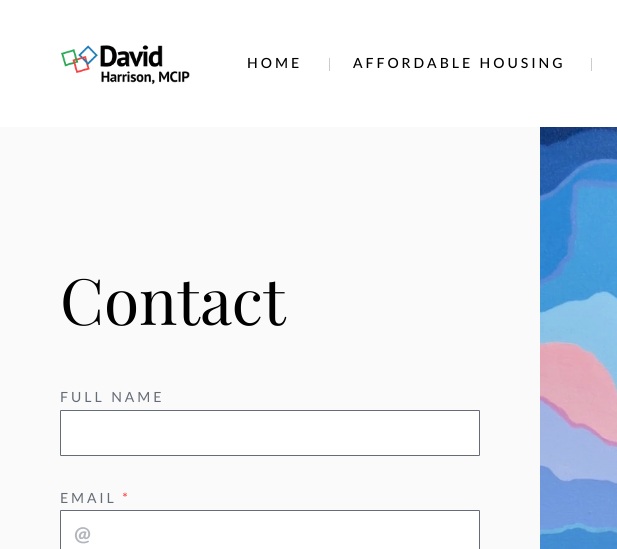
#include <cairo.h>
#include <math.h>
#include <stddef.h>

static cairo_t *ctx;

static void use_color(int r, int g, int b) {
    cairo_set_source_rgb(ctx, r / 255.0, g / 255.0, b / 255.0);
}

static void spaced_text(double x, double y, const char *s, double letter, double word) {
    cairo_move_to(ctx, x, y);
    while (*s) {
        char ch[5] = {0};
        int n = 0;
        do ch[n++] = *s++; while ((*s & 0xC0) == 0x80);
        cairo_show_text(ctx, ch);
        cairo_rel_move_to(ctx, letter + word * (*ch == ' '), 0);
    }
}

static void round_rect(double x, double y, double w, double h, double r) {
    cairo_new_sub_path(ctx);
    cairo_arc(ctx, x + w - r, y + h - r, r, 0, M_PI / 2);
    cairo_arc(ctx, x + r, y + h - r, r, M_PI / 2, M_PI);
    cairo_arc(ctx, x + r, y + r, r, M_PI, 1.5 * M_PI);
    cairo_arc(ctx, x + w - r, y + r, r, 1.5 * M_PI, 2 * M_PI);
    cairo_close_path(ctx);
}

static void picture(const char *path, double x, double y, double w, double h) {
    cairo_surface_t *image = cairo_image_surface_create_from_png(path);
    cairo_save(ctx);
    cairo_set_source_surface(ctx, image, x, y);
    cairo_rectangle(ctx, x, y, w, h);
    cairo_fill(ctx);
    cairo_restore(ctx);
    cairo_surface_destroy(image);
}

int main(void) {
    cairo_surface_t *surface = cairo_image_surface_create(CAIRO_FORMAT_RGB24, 617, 549);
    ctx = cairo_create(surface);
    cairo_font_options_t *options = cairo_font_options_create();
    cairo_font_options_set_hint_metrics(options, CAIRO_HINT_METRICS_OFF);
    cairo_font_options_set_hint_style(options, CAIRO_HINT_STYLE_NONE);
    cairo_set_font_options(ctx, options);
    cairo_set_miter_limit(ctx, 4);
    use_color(255, 255, 255);
    cairo_paint(ctx);
    picture("img1.png", 61, 45, 129, 40);
    cairo_select_font_face(ctx, "Lato Medium", CAIRO_FONT_SLANT_NORMAL, CAIRO_FONT_WEIGHT_NORMAL);
    cairo_set_font_size(ctx, 14);
    use_color(0, 0, 0);
    spaced_text(247, 68, "HOME", 3, 0);
    use_color(204, 204, 204);
    cairo_rectangle(ctx, 329, 58, 1, 13);
    cairo_fill(ctx);
    use_color(0, 0, 0);
    spaced_text(353, 68, "AFFORDABLE HOUSING", 3, 0);
    use_color(204, 204, 204);
    cairo_rectangle(ctx, 591, 58, 1, 13);
    cairo_fill(ctx);
    use_color(250, 250, 250);
    cairo_rectangle(ctx, 0, 127, 540, 422);
    cairo_fill(ctx);
    cairo_select_font_face(ctx, "Playfair Display", CAIRO_FONT_SLANT_NORMAL, CAIRO_FONT_WEIGHT_NORMAL);
    cairo_set_font_size(ctx, 64);
    use_color(0, 0, 0);
    cairo_move_to(ctx, 60, 325);
    cairo_show_text(ctx, "Contact");
    cairo_select_font_face(ctx, "Lato", CAIRO_FONT_SLANT_NORMAL, CAIRO_FONT_WEIGHT_NORMAL);
    cairo_set_font_size(ctx, 14);
    use_color(102, 108, 119);
    spaced_text(60, 402, "FULL NAME", 3, 0);
    use_color(255, 255, 255);
    round_rect(60.5, 410.5, 419, 45, 0.5);
    cairo_fill_preserve(ctx);
    use_color(102, 108, 119);
    cairo_set_line_width(ctx, 1);
    cairo_stroke(ctx);
    spaced_text(60, 503, "EMAIL", 3, 0);
    use_color(255, 51, 51);
    spaced_text(122, 503, "*", 3, 0);
    use_color(255, 255, 255);
    round_rect(60.5, 510.5, 419, 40, 0.5);
    cairo_fill_preserve(ctx);
    use_color(102, 108, 119);
    cairo_stroke(ctx);
    cairo_select_font_face(ctx, "Lato Black", CAIRO_FONT_SLANT_NORMAL, CAIRO_FONT_WEIGHT_NORMAL);
    cairo_set_font_size(ctx, 20);
    use_color(179, 182, 187);
    cairo_move_to(ctx, 74, 541);
    cairo_show_text(ctx, "@");
    picture("img2.png", 540, 127, 77, 422);
    cairo_surface_write_to_png(surface, "result.png");
    cairo_font_options_destroy(options);
    cairo_destroy(ctx);
    cairo_surface_destroy(surface);
    return 0;
}
